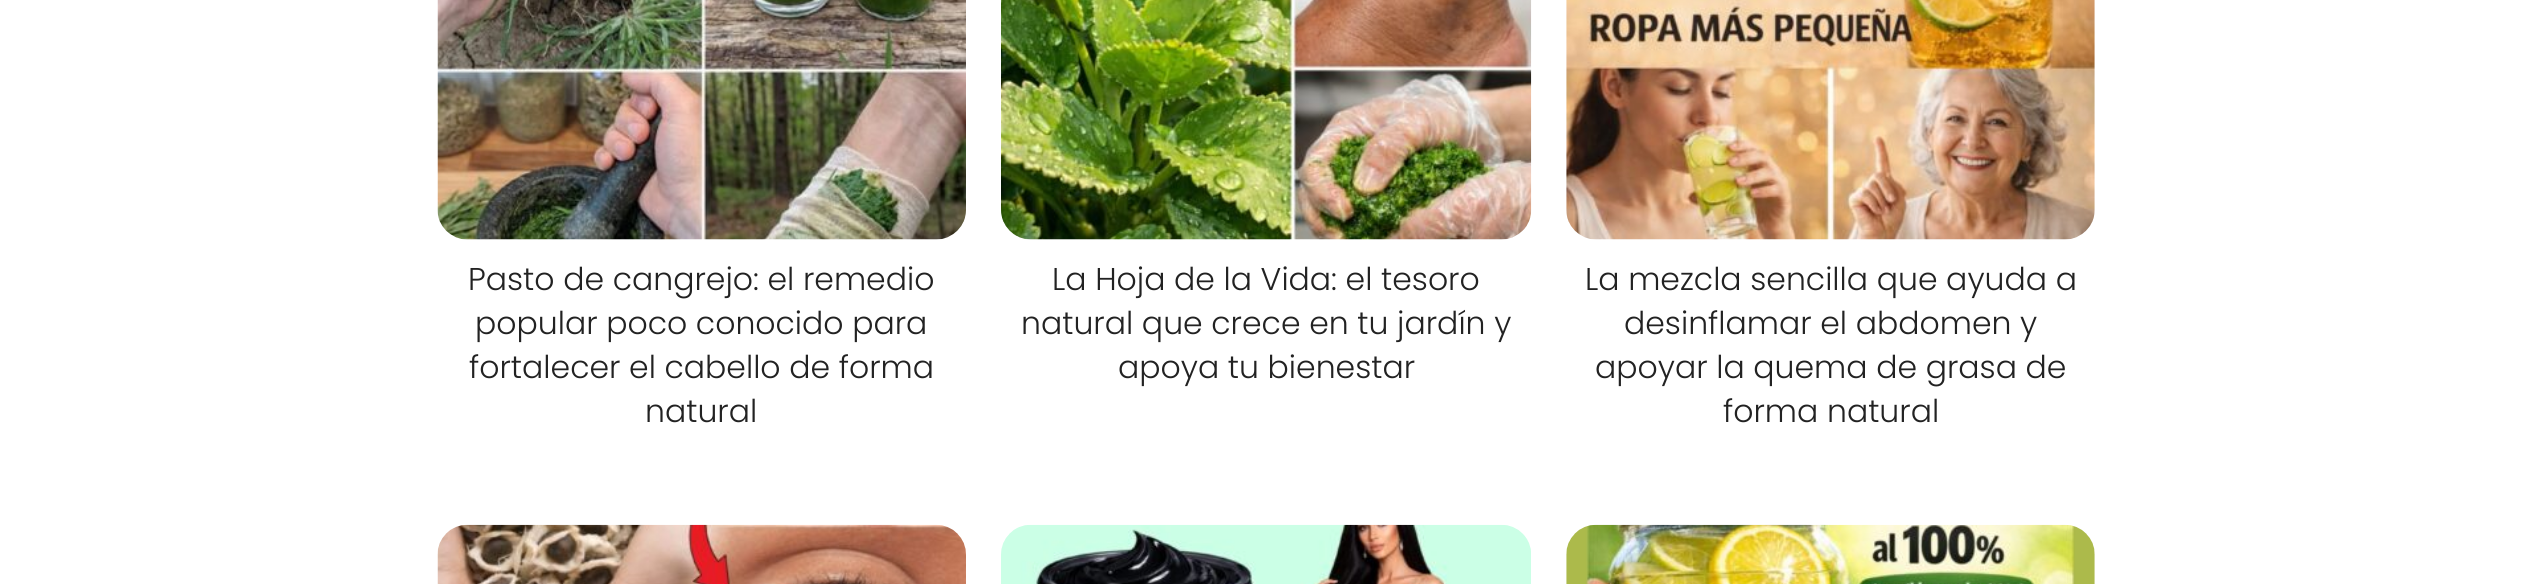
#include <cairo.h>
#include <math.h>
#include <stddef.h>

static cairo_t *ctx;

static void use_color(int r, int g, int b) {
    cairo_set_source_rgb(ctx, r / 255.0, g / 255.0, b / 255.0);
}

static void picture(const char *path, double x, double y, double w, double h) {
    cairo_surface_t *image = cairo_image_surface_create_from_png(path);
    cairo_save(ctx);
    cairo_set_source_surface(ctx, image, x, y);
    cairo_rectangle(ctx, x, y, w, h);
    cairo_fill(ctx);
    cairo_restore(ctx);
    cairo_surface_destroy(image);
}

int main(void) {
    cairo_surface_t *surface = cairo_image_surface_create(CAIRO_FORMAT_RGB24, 2532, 584);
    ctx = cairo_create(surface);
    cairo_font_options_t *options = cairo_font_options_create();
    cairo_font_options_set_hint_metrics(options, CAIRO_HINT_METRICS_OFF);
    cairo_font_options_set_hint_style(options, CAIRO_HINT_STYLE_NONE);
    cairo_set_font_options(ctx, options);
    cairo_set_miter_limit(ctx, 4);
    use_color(255, 255, 255);
    cairo_paint(ctx);
    picture("img1.png", 437, 0, 529, 240);
    cairo_select_font_face(ctx, "Poppins Light", CAIRO_FONT_SLANT_NORMAL, CAIRO_FONT_WEIGHT_NORMAL);
    cairo_set_font_size(ctx, 31.5);
    use_color(34, 34, 34);
    cairo_move_to(ctx, 468, 290);
    cairo_show_text(ctx, "Pasto de cangrejo: el remedio");
    cairo_move_to(ctx, 475, 334);
    cairo_show_text(ctx, "popular poco conocido para");
    cairo_move_to(ctx, 469, 378);
    cairo_show_text(ctx, "fortalecer el cabello de forma");
    cairo_move_to(ctx, 645, 422);
    cairo_show_text(ctx, "natural");
    picture("img2.png", 1001, 0, 531, 240);
    cairo_move_to(ctx, 1052, 290);
    cairo_show_text(ctx, "La Hoja de la Vida: el tesoro");
    cairo_move_to(ctx, 1021, 334);
    cairo_show_text(ctx, "natural que crece en tu jardín y");
    cairo_move_to(ctx, 1118, 378);
    cairo_show_text(ctx, "apoya tu bienestar");
    picture("img3.png", 1566, 0, 529, 240);
    cairo_move_to(ctx, 1585, 290);
    cairo_show_text(ctx, "La mezcla sencilla que ayuda a");
    cairo_move_to(ctx, 1624, 334);
    cairo_show_text(ctx, "desinflamar el abdomen y");
    cairo_move_to(ctx, 1595, 378);
    cairo_show_text(ctx, "apoyar la quema de grasa de");
    cairo_move_to(ctx, 1723, 422);
    cairo_show_text(ctx, "forma natural");
    picture("img4.png", 437, 524, 529, 60);
    picture("img5.png", 1001, 524, 530, 60);
    picture("img6.png", 1566, 524, 529, 60);
    cairo_surface_write_to_png(surface, "result.png");
    cairo_font_options_destroy(options);
    cairo_destroy(ctx);
    cairo_surface_destroy(surface);
    return 0;
}
